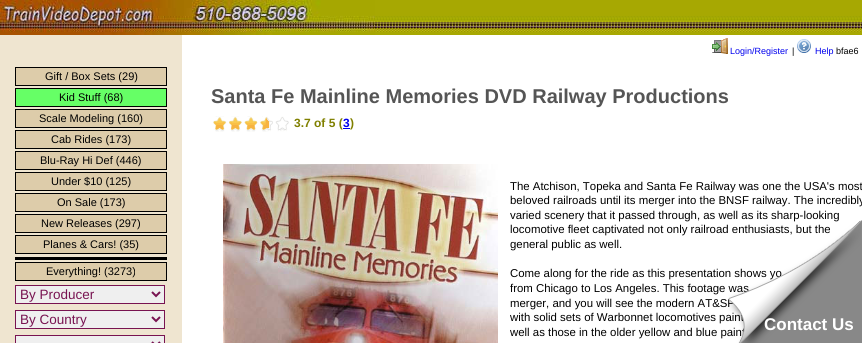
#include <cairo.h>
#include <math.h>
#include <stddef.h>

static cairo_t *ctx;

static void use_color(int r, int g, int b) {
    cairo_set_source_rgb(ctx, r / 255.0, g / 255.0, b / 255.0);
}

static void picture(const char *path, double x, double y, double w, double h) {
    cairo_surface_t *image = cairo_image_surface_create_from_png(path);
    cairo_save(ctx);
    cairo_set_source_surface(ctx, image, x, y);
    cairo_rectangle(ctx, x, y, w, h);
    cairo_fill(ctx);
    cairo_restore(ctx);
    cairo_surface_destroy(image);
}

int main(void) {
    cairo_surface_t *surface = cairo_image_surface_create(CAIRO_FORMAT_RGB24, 862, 343);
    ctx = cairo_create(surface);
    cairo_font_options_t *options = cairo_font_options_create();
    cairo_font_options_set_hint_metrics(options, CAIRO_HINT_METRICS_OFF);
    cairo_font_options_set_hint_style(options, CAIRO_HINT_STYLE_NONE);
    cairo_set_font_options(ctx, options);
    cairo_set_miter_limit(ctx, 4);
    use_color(255, 255, 255);
    cairo_paint(ctx);
    picture("img1.png", 375, 0, 487, 35);
    picture("img2.png", 0, 0, 375, 35);
    picture("img3.png", 712, 38, 16, 16);
    cairo_select_font_face(ctx, "Liberation Sans", CAIRO_FONT_SLANT_NORMAL, CAIRO_FONT_WEIGHT_NORMAL);
    cairo_set_font_size(ctx, 9);
    use_color(0, 0, 238);
    cairo_move_to(ctx, 730, 54);
    cairo_show_text(ctx, "Login/Register");
    use_color(0, 0, 0);
    cairo_move_to(ctx, 792, 54);
    cairo_show_text(ctx, "|");
    picture("img4.png", 797, 39, 14, 14);
    use_color(0, 0, 238);
    cairo_move_to(ctx, 815, 54);
    cairo_show_text(ctx, "Help");
    use_color(0, 0, 0);
    cairo_move_to(ctx, 836, 54);
    cairo_show_text(ctx, "bfae6");
    use_color(239, 229, 208);
    cairo_rectangle(ctx, 0, 35, 182, 308);
    cairo_fill(ctx);
    use_color(221, 204, 170);
    cairo_rectangle(ctx, 15.5, 67.5, 151, 18);
    cairo_fill_preserve(ctx);
    use_color(0, 0, 0);
    cairo_set_line_width(ctx, 1);
    cairo_stroke(ctx);
    cairo_set_font_size(ctx, 11);
    cairo_move_to(ctx, 45, 80);
    cairo_show_text(ctx, "Gift / Box Sets (29)");
    use_color(102, 255, 102);
    cairo_rectangle(ctx, 15.5, 88.5, 151, 18);
    cairo_fill_preserve(ctx);
    use_color(0, 0, 0);
    cairo_stroke(ctx);
    cairo_move_to(ctx, 59, 101);
    cairo_show_text(ctx, "Kid Stuff (68)");
    use_color(221, 204, 170);
    cairo_rectangle(ctx, 15.5, 109.5, 151, 18);
    cairo_fill_preserve(ctx);
    use_color(0, 0, 0);
    cairo_stroke(ctx);
    cairo_move_to(ctx, 39, 122);
    cairo_show_text(ctx, "Scale Modeling (160)");
    use_color(221, 204, 170);
    cairo_rectangle(ctx, 15.5, 130.5, 151, 18);
    cairo_fill_preserve(ctx);
    use_color(0, 0, 0);
    cairo_stroke(ctx);
    cairo_move_to(ctx, 51, 143);
    cairo_show_text(ctx, "Cab Rides (173)");
    use_color(221, 204, 170);
    cairo_rectangle(ctx, 15.5, 151.5, 151, 18);
    cairo_fill_preserve(ctx);
    use_color(0, 0, 0);
    cairo_stroke(ctx);
    cairo_move_to(ctx, 40, 164);
    cairo_show_text(ctx, "Blu-Ray Hi Def (446)");
    use_color(221, 204, 170);
    cairo_rectangle(ctx, 15.5, 172.5, 151, 18);
    cairo_fill_preserve(ctx);
    use_color(0, 0, 0);
    cairo_stroke(ctx);
    cairo_move_to(ctx, 51, 185);
    cairo_show_text(ctx, "Under $10 (125)");
    use_color(221, 204, 170);
    cairo_rectangle(ctx, 15.5, 193.5, 151, 18);
    cairo_fill_preserve(ctx);
    use_color(0, 0, 0);
    cairo_stroke(ctx);
    cairo_move_to(ctx, 57, 206);
    cairo_show_text(ctx, "On Sale (173)");
    use_color(221, 204, 170);
    cairo_rectangle(ctx, 15.5, 214.5, 151, 18);
    cairo_fill_preserve(ctx);
    use_color(0, 0, 0);
    cairo_stroke(ctx);
    cairo_move_to(ctx, 41, 227);
    cairo_show_text(ctx, "New Releases (297)");
    use_color(221, 204, 170);
    cairo_rectangle(ctx, 15.5, 235.5, 151, 18);
    cairo_fill_preserve(ctx);
    use_color(0, 0, 0);
    cairo_stroke(ctx);
    cairo_move_to(ctx, 43, 248);
    cairo_show_text(ctx, "Planes & Cars! (35)");
    cairo_rectangle(ctx, 15, 257, 152, 3);
    cairo_fill(ctx);
    use_color(221, 204, 170);
    cairo_rectangle(ctx, 15.5, 262.5, 151, 18);
    cairo_fill_preserve(ctx);
    use_color(0, 0, 0);
    cairo_stroke(ctx);
    cairo_move_to(ctx, 46, 275);
    cairo_show_text(ctx, "Everything! (3273)");
    use_color(239, 239, 239);
    cairo_rectangle(ctx, 15.5, 285.5, 149, 18);
    cairo_fill_preserve(ctx);
    use_color(120, 19, 81);
    cairo_stroke(ctx);
    cairo_new_path(ctx);
    cairo_move_to(ctx, 152, 292);
    cairo_line_to(ctx, 156, 296);
    cairo_line_to(ctx, 160, 292);
    cairo_set_line_width(ctx, 2);
    cairo_stroke(ctx);
    cairo_set_font_size(ctx, 13.5);
    cairo_move_to(ctx, 20, 299);
    cairo_show_text(ctx, "By Producer");
    use_color(239, 239, 239);
    cairo_rectangle(ctx, 15.5, 310.5, 149, 18);
    cairo_fill_preserve(ctx);
    use_color(120, 19, 81);
    cairo_set_line_width(ctx, 1);
    cairo_stroke(ctx);
    cairo_new_path(ctx);
    cairo_move_to(ctx, 152, 317);
    cairo_line_to(ctx, 156, 321);
    cairo_line_to(ctx, 160, 317);
    cairo_set_line_width(ctx, 2);
    cairo_stroke(ctx);
    cairo_move_to(ctx, 20, 324);
    cairo_show_text(ctx, "By Country");
    use_color(239, 239, 239);
    cairo_rectangle(ctx, 15.5, 335.5, 149, 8);
    cairo_fill_preserve(ctx);
    use_color(120, 19, 81);
    cairo_set_line_width(ctx, 1);
    cairo_stroke(ctx);
    cairo_new_path(ctx);
    cairo_move_to(ctx, 152, 342);
    cairo_line_to(ctx, 156, 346);
    cairo_line_to(ctx, 160, 342);
    cairo_set_line_width(ctx, 2);
    cairo_stroke(ctx);
    cairo_select_font_face(ctx, "Liberation Sans", CAIRO_FONT_SLANT_NORMAL, CAIRO_FONT_WEIGHT_BOLD);
    cairo_set_font_size(ctx, 20);
    use_color(85, 85, 85);
    cairo_move_to(ctx, 211, 103);
    cairo_show_text(ctx, "Santa Fe Mainline Memories DVD Railway Productions");
    picture("img5.png", 213, 116, 76, 16);
    cairo_set_font_size(ctx, 12);
    use_color(128, 128, 0);
    cairo_move_to(ctx, 294, 127);
    cairo_show_text(ctx, "3.7 of 5 (");
    use_color(0, 0, 238);
    cairo_rectangle(ctx, 343, 128, 7, 1);
    cairo_fill(ctx);
    cairo_move_to(ctx, 343, 127);
    cairo_show_text(ctx, "3");
    use_color(128, 128, 0);
    cairo_move_to(ctx, 350, 127);
    cairo_show_text(ctx, ")");
    picture("img6.png", 223, 164, 275, 179);
    cairo_select_font_face(ctx, "Liberation Sans", CAIRO_FONT_SLANT_NORMAL, CAIRO_FONT_WEIGHT_NORMAL);
    cairo_set_font_size(ctx, 11.4);
    use_color(0, 0, 0);
    cairo_move_to(ctx, 510, 190);
    cairo_show_text(ctx, "The Atchison, Topeka and Santa Fe Railway was one the USA's most");
    cairo_move_to(ctx, 510, 204);
    cairo_show_text(ctx, "beloved railroads until its merger into the BNSF railway. The incredibly");
    cairo_move_to(ctx, 510, 219);
    cairo_show_text(ctx, "varied scenery that it passed through, as well as its sharp-looking");
    cairo_move_to(ctx, 510, 233);
    cairo_show_text(ctx, "locomotive fleet captivated not only railroad enthusiasts, but the");
    cairo_move_to(ctx, 510, 248);
    cairo_show_text(ctx, "general public as well.");
    cairo_move_to(ctx, 510, 277);
    cairo_show_text(ctx, "Come along for the ride as this presentation shows yo");
    cairo_move_to(ctx, 510, 292);
    cairo_show_text(ctx, "from Chicago to Los Angeles. This footage was");
    cairo_move_to(ctx, 510, 307);
    cairo_show_text(ctx, "merger, and you will see the modern AT&SF");
    cairo_move_to(ctx, 510, 321);
    cairo_show_text(ctx, "with solid sets of Warbonnet locomotives paint");
    cairo_move_to(ctx, 510, 336);
    cairo_show_text(ctx, "well as those in the older yellow and blue paint");
    use_color(136, 136, 136);
    cairo_new_path(ctx);
    cairo_move_to(ctx, 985, 343);
    cairo_line_to(ctx, 739, 343);
    cairo_line_to(ctx, 862, 220);
    cairo_close_path(ctx);
    cairo_fill(ctx);
    picture("img7.png", 728, 220, 133, 123);
    cairo_select_font_face(ctx, "Liberation Sans", CAIRO_FONT_SLANT_NORMAL, CAIRO_FONT_WEIGHT_BOLD);
    cairo_set_font_size(ctx, 17);
    use_color(255, 255, 255);
    cairo_move_to(ctx, 764, 330);
    cairo_show_text(ctx, "Contact Us");
    cairo_surface_write_to_png(surface, "result.png");
    cairo_font_options_destroy(options);
    cairo_destroy(ctx);
    cairo_surface_destroy(surface);
    return 0;
}
